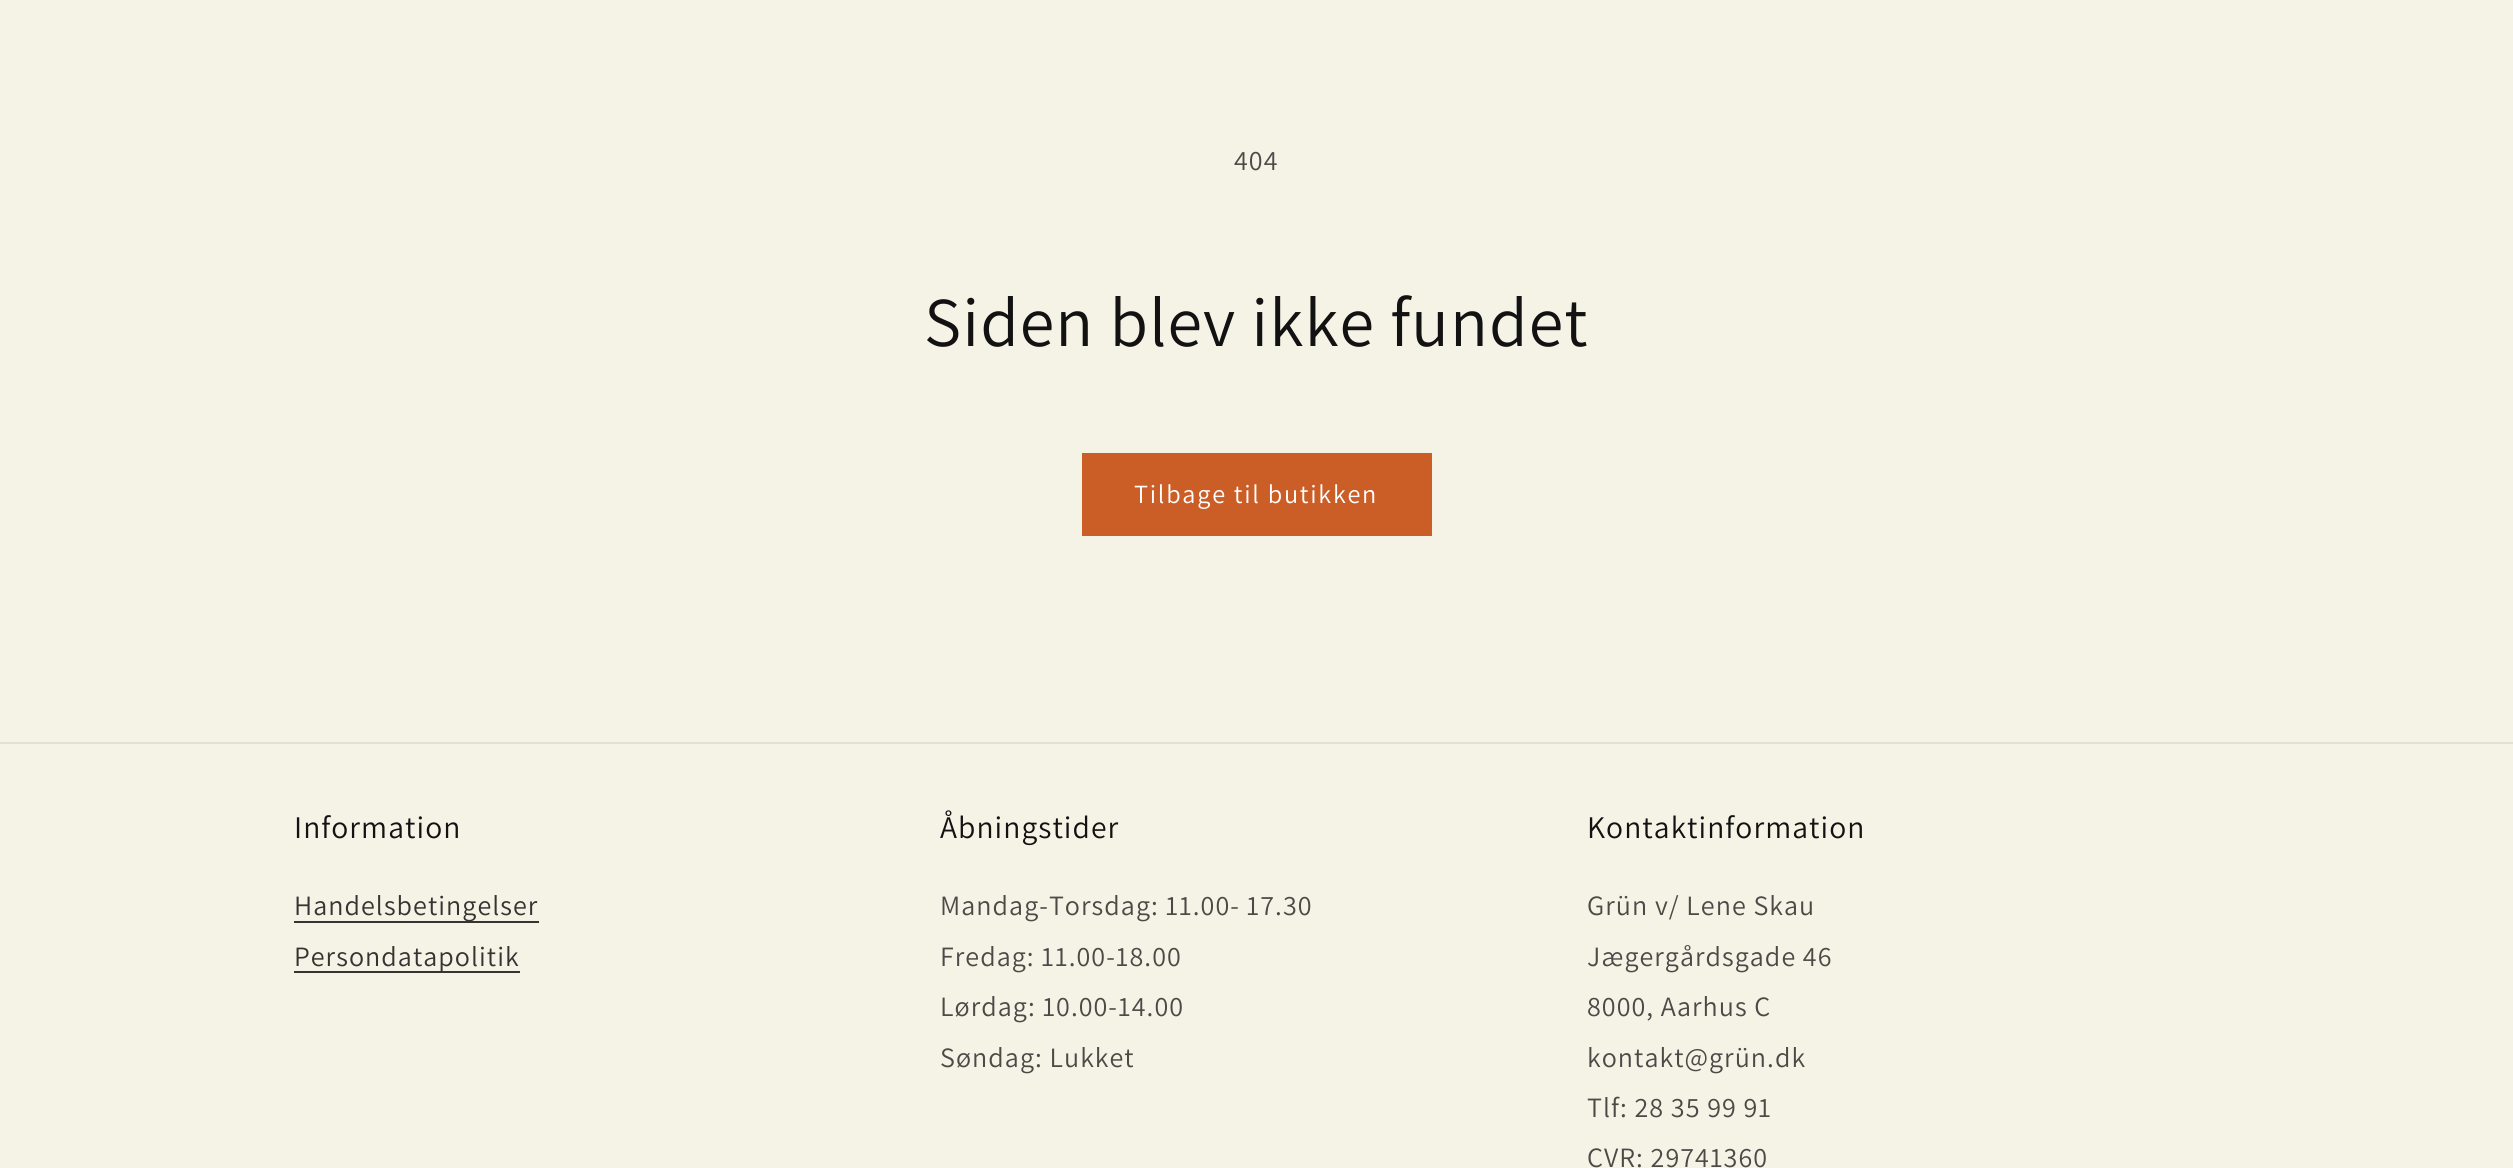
#include <cairo.h>
#include <math.h>
#include <stddef.h>

static cairo_t *ctx;

static void use_color(int r, int g, int b) {
    cairo_set_source_rgb(ctx, r / 255.0, g / 255.0, b / 255.0);
}

static void spaced_text(double x, double y, const char *s, double letter, double word) {
    cairo_move_to(ctx, x, y);
    while (*s) {
        char ch[5] = {0};
        int n = 0;
        do ch[n++] = *s++; while ((*s & 0xC0) == 0x80);
        cairo_show_text(ctx, ch);
        cairo_rel_move_to(ctx, letter + word * (*ch == ' '), 0);
    }
}

int main(void) {
    cairo_surface_t *surface = cairo_image_surface_create(CAIRO_FORMAT_RGB24, 2513, 1168);
    ctx = cairo_create(surface);
    cairo_font_options_t *options = cairo_font_options_create();
    cairo_font_options_set_hint_metrics(options, CAIRO_HINT_METRICS_OFF);
    cairo_font_options_set_hint_style(options, CAIRO_HINT_STYLE_NONE);
    cairo_set_font_options(ctx, options);
    cairo_set_miter_limit(ctx, 4);
    use_color(245, 243, 230);
    cairo_paint(ctx);
    cairo_select_font_face(ctx, "Assistant", CAIRO_FONT_SLANT_NORMAL, CAIRO_FONT_WEIGHT_NORMAL);
    cairo_set_font_size(ctx, 28);
    use_color(75, 74, 71);
    spaced_text(1234, 170, "404", 1.05, 0);
    cairo_set_font_size(ctx, 70);
    use_color(18, 18, 18);
    spaced_text(924, 346, "Siden blev ikke fundet", 1.05, 0);
    use_color(203, 94, 38);
    cairo_rectangle(ctx, 1082, 453, 350, 83);
    cairo_fill(ctx);
    cairo_set_font_size(ctx, 26.25);
    use_color(255, 255, 255);
    spaced_text(1134, 503, "Tilbage til butikken", 1.75, 0);
    use_color(227, 225, 213);
    cairo_rectangle(ctx, 0, 742, 2513, 2);
    cairo_fill(ctx);
    cairo_set_font_size(ctx, 31.5);
    use_color(18, 18, 18);
    spaced_text(294, 838, "Information", 1.05, 0);
    use_color(52, 52, 50);
    cairo_rectangle(ctx, 294, 921, 245, 2);
    cairo_fill(ctx);
    cairo_set_font_size(ctx, 28);
    spaced_text(294, 915, "Handelsbetingelser", 1.05, 0);
    cairo_rectangle(ctx, 294, 971, 226, 2);
    cairo_fill(ctx);
    spaced_text(294, 966, "Persondatapolitik", 1.05, 0);
    cairo_set_font_size(ctx, 31.5);
    use_color(18, 18, 18);
    spaced_text(940, 838, "Åbningstider", 1.05, 0);
    cairo_set_font_size(ctx, 28);
    use_color(75, 74, 71);
    spaced_text(940, 915, "Mandag-Torsdag: 11.00- 17.30", 1.05, 0);
    spaced_text(940, 966, "Fredag: 11.00-18.00", 1.05, 0);
    spaced_text(940, 1016, "Lørdag: 10.00-14.00", 1.05, 0);
    spaced_text(940, 1067, "Søndag: Lukket", 1.05, 0);
    cairo_set_font_size(ctx, 31.5);
    use_color(18, 18, 18);
    spaced_text(1587, 838, "Kontaktinformation", 1.05, 0);
    cairo_set_font_size(ctx, 28);
    use_color(75, 74, 71);
    spaced_text(1587, 915, "Grün v/ Lene Skau", 1.05, 0);
    spaced_text(1587, 966, "Jægergårdsgade 46", 1.05, 0);
    spaced_text(1587, 1016, "8000, Aarhus C", 1.05, 0);
    spaced_text(1587, 1067, "kontakt@grün.dk", 1.05, 0);
    spaced_text(1587, 1117, "Tlf: 28 35 99 91", 1.05, 0);
    spaced_text(1587, 1167, "CVR: 29741360", 1.05, 0);
    cairo_surface_write_to_png(surface, "result.png");
    cairo_font_options_destroy(options);
    cairo_destroy(ctx);
    cairo_surface_destroy(surface);
    return 0;
}
